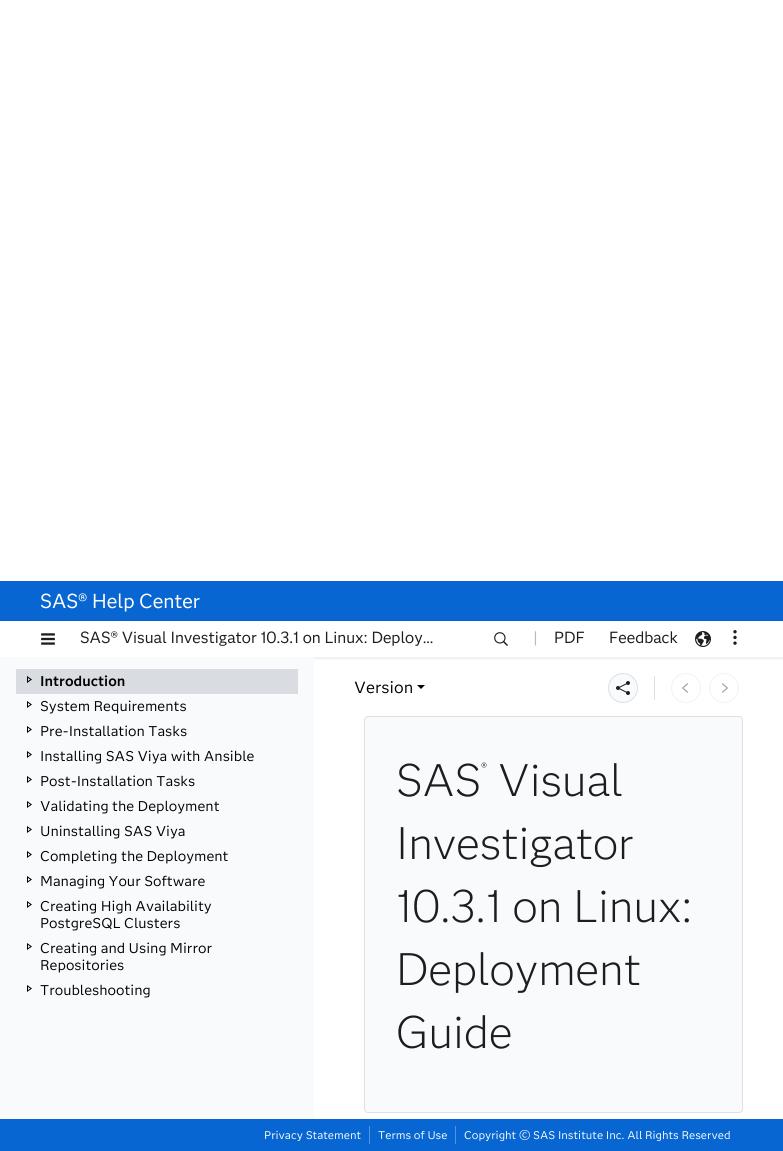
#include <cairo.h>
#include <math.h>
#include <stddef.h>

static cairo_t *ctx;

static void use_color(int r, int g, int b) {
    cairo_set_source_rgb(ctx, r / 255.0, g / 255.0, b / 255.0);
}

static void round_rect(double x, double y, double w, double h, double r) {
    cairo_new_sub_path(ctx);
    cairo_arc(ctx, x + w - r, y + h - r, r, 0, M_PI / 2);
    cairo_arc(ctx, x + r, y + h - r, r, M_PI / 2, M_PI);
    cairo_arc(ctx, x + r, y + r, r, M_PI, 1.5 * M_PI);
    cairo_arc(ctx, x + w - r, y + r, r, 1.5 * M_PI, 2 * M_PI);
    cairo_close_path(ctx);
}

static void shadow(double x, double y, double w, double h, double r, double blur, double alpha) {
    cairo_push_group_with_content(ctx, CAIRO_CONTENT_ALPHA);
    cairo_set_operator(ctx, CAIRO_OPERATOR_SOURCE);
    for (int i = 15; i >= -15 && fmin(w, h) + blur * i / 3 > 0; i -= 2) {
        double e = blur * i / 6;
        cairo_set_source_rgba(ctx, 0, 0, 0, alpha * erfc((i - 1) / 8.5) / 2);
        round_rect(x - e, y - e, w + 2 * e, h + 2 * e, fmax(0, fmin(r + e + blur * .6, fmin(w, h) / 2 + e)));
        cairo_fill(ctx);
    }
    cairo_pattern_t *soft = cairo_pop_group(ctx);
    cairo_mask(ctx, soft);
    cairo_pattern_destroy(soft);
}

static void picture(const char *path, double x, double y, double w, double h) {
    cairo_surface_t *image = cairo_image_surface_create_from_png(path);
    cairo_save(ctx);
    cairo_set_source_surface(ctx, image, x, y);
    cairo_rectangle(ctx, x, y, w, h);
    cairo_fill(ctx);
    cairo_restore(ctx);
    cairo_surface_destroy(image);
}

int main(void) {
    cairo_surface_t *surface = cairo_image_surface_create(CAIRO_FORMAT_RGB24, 783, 1151);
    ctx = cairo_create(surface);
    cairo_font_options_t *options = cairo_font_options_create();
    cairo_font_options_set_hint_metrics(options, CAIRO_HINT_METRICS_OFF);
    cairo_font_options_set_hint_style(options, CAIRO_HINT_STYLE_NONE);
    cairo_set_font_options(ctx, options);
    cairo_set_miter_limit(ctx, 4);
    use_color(255, 255, 255);
    cairo_paint(ctx);
    cairo_save(ctx);
    cairo_rectangle(ctx, 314, 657, 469, 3);
    cairo_clip(ctx);
    use_color(0, 0, 0);
    shadow(0, 578, 783, 81, 0, 2, 0.08);
    cairo_restore(ctx);
    use_color(7, 102, 209);
    cairo_rectangle(ctx, 0, 581, 783, 40);
    cairo_fill(ctx);
    cairo_select_font_face(ctx, "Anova", CAIRO_FONT_SLANT_NORMAL, CAIRO_FONT_WEIGHT_NORMAL);
    cairo_set_font_size(ctx, 20);
    use_color(255, 255, 255);
    cairo_move_to(ctx, 40, 608);
    cairo_show_text(ctx, "SAS® Help Center");
    picture("img1.png", 41, 633, 14, 12);
    cairo_set_font_size(ctx, 16);
    use_color(27, 29, 34);
    cairo_move_to(ctx, 80, 643);
    cairo_show_text(ctx, "SAS® Visual Investigator 10.3.1 on Linux: Deploy…");
    picture("img2.png", 494, 632, 14, 14);
    use_color(187, 187, 189);
    cairo_move_to(ctx, 533, 643);
    cairo_show_text(ctx, "|");
    use_color(27, 29, 34);
    cairo_move_to(ctx, 554, 643);
    cairo_show_text(ctx, "PDF");
    cairo_move_to(ctx, 609, 643);
    cairo_show_text(ctx, "Feedback");
    picture("img3.png", 695, 631, 16, 16);
    picture("img4.png", 733, 630, 4, 15);
    use_color(249, 250, 251);
    cairo_rectangle(ctx, 0, 657, 314, 462);
    cairo_fill(ctx);
    use_color(217, 221, 226);
    cairo_rectangle(ctx, 16, 669, 282, 25);
    cairo_fill(ctx);
    picture("img5.png", 27, 676, 5, 7);
    cairo_select_font_face(ctx, "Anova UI", CAIRO_FONT_SLANT_NORMAL, CAIRO_FONT_WEIGHT_BOLD);
    cairo_set_font_size(ctx, 14);
    use_color(0, 0, 0);
    cairo_move_to(ctx, 40, 686);
    cairo_show_text(ctx, "Introduction");
    picture("img6.png", 27, 701, 5, 7);
    cairo_select_font_face(ctx, "Anova UI", CAIRO_FONT_SLANT_NORMAL, CAIRO_FONT_WEIGHT_NORMAL);
    cairo_move_to(ctx, 40, 711);
    cairo_show_text(ctx, "System Requirements");
    picture("img6.png", 27, 726, 5, 7);
    cairo_move_to(ctx, 40, 736);
    cairo_show_text(ctx, "Pre-Installation Tasks");
    picture("img6.png", 27, 751, 5, 7);
    cairo_move_to(ctx, 40, 761);
    cairo_show_text(ctx, "Installing SAS Viya with Ansible");
    picture("img6.png", 27, 776, 5, 7);
    cairo_move_to(ctx, 40, 786);
    cairo_show_text(ctx, "Post-Installation Tasks");
    picture("img6.png", 27, 801, 5, 7);
    cairo_move_to(ctx, 40, 811);
    cairo_show_text(ctx, "Validating the Deployment");
    picture("img6.png", 27, 826, 5, 7);
    cairo_move_to(ctx, 40, 836);
    cairo_show_text(ctx, "Uninstalling SAS Viya");
    picture("img6.png", 27, 851, 5, 7);
    cairo_move_to(ctx, 40, 861);
    cairo_show_text(ctx, "Completing the Deployment");
    picture("img6.png", 27, 876, 5, 7);
    cairo_move_to(ctx, 40, 886);
    cairo_show_text(ctx, "Managing Your Software");
    picture("img6.png", 27, 901, 5, 7);
    cairo_move_to(ctx, 40, 911);
    cairo_show_text(ctx, "Creating High Availability");
    cairo_move_to(ctx, 40, 928);
    cairo_show_text(ctx, "PostgreSQL Clusters");
    picture("img6.png", 27, 943, 5, 7);
    cairo_move_to(ctx, 40, 953);
    cairo_show_text(ctx, "Creating and Using Mirror");
    cairo_move_to(ctx, 40, 970);
    cairo_show_text(ctx, "Repositories");
    picture("img6.png", 27, 985, 5, 7);
    cairo_move_to(ctx, 40, 995);
    cairo_show_text(ctx, "Troubleshooting");
    cairo_set_font_size(ctx, 16);
    cairo_move_to(ctx, 354, 693);
    cairo_show_text(ctx, "Version");
    cairo_new_path(ctx);
    cairo_move_to(ctx, 417, 685);
    cairo_line_to(ctx, 425, 685);
    cairo_line_to(ctx, 421, 689);
    cairo_close_path(ctx);
    cairo_fill(ctx);
    use_color(249, 250, 251);
    cairo_arc(ctx, 623, 688, 14.5, 0, 2 * M_PI);
    cairo_fill_preserve(ctx);
    use_color(221, 223, 228);
    cairo_set_line_width(ctx, 1);
    cairo_stroke(ctx);
    picture("img7.png", 616, 681, 14, 14);
    cairo_rectangle(ctx, 654, 676, 1, 24);
    cairo_fill(ctx);
    cairo_arc(ctx, 686, 688, 14.5, 0, 2 * M_PI);
    use_color(241, 242, 244);
    cairo_stroke(ctx);
    picture("img8.png", 682, 683, 7, 10);
    cairo_arc(ctx, 724, 688, 14.5, 0, 2 * M_PI);
    cairo_stroke(ctx);
    picture("img9.png", 721, 683, 7, 10);
    use_color(249, 250, 251);
    round_rect(364.5, 716.5, 378, 396, 3.5);
    cairo_fill_preserve(ctx);
    use_color(221, 223, 228);
    cairo_stroke(ctx);
    cairo_select_font_face(ctx, "Anova Light", CAIRO_FONT_SLANT_NORMAL, CAIRO_FONT_WEIGHT_NORMAL);
    cairo_set_font_size(ctx, 45);
    use_color(27, 29, 34);
    cairo_move_to(ctx, 396, 796);
    cairo_show_text(ctx, "SAS");
    cairo_set_font_size(ctx, 13);
    cairo_move_to(ctx, 481, 772);
    cairo_show_text(ctx, "®");
    cairo_set_font_size(ctx, 45);
    cairo_move_to(ctx, 498, 796);
    cairo_show_text(ctx, "Visual");
    cairo_move_to(ctx, 396, 859);
    cairo_show_text(ctx, "Investigator");
    cairo_move_to(ctx, 396, 922);
    cairo_show_text(ctx, "10.3.1 on Linux:");
    cairo_move_to(ctx, 396, 985);
    cairo_show_text(ctx, "Deployment");
    cairo_move_to(ctx, 396, 1048);
    cairo_show_text(ctx, "Guide");
    use_color(7, 102, 209);
    cairo_rectangle(ctx, 0, 1119, 783, 32);
    cairo_fill(ctx);
    cairo_select_font_face(ctx, "Anova UI", CAIRO_FONT_SLANT_NORMAL, CAIRO_FONT_WEIGHT_NORMAL);
    cairo_set_font_size(ctx, 11);
    use_color(255, 255, 255);
    cairo_move_to(ctx, 264, 1139);
    cairo_show_text(ctx, "Privacy Statement");
    use_color(81, 148, 223);
    cairo_rectangle(ctx, 369, 1126, 1, 18);
    cairo_fill(ctx);
    use_color(255, 255, 255);
    cairo_move_to(ctx, 378, 1139);
    cairo_show_text(ctx, "Terms of Use");
    use_color(81, 148, 223);
    cairo_rectangle(ctx, 455, 1126, 1, 18);
    cairo_fill(ctx);
    use_color(255, 255, 255);
    cairo_move_to(ctx, 464, 1139);
    cairo_show_text(ctx, "Copyright © SAS Institute Inc. All Rights Reserved");
    cairo_surface_write_to_png(surface, "result.png");
    cairo_font_options_destroy(options);
    cairo_destroy(ctx);
    cairo_surface_destroy(surface);
    return 0;
}
